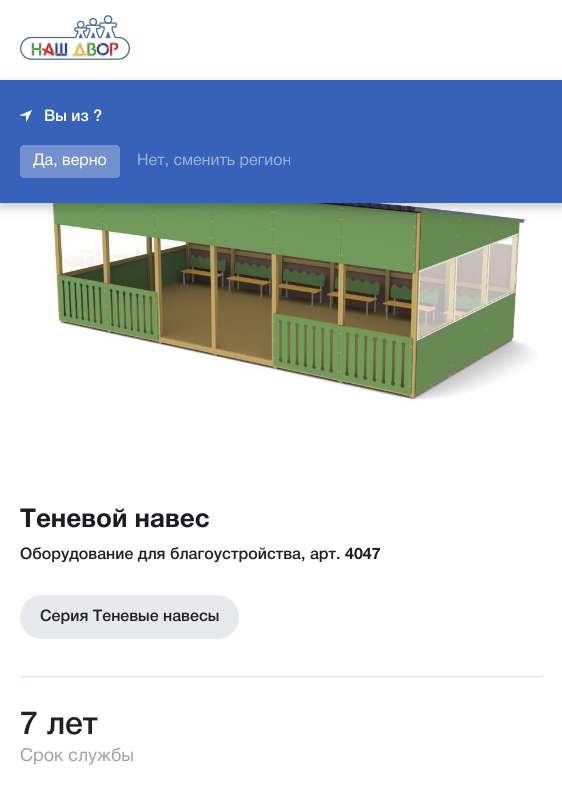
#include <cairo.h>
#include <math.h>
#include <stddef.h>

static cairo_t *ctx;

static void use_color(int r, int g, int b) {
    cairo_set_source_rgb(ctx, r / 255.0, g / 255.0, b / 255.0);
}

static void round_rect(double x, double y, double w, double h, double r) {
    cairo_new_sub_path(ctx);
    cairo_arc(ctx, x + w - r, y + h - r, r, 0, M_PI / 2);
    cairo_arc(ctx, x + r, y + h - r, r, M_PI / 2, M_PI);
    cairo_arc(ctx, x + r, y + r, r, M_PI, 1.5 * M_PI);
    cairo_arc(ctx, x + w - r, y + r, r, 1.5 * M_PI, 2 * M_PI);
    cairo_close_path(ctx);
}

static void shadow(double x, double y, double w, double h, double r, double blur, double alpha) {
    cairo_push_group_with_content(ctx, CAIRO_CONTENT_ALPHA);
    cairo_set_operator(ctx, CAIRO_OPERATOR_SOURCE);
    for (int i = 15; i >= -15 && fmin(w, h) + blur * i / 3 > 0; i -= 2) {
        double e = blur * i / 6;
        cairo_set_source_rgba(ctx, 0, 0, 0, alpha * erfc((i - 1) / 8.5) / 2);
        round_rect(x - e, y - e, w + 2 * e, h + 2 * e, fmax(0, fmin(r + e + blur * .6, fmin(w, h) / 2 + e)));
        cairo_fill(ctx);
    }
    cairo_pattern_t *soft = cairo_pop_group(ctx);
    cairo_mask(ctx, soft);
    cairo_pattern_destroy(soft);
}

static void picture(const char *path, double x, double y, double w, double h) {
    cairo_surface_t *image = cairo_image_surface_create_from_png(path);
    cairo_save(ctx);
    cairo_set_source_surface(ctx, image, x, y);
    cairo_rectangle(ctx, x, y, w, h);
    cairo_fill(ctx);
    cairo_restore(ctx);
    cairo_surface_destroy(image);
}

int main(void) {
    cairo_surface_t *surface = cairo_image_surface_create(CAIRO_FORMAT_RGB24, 562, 785);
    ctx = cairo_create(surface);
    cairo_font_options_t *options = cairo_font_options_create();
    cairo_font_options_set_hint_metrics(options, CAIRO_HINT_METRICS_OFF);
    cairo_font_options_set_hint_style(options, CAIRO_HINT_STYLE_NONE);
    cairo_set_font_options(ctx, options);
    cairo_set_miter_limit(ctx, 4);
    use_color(255, 255, 255);
    cairo_paint(ctx);
    picture("img1.png", 20, 15, 110, 45);
    picture("img3.png", 39, 203, 498, 199);
    use_color(0, 0, 0);
    shadow(0, 85, 562, 123, 0, 5, 0.2);
    use_color(56, 98, 186);
    cairo_rectangle(ctx, 0, 80, 562, 123);
    cairo_fill(ctx);
    picture("img2.png", 20, 110, 12, 12);
    cairo_select_font_face(ctx, "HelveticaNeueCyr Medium", CAIRO_FONT_SLANT_NORMAL, CAIRO_FONT_WEIGHT_NORMAL);
    cairo_set_font_size(ctx, 16);
    use_color(255, 255, 255);
    cairo_move_to(ctx, 44, 121);
    cairo_show_text(ctx, "Вы из ?");
    use_color(116, 145, 207);
    round_rect(20, 145, 100, 33, 4);
    cairo_fill(ctx);
    cairo_select_font_face(ctx, "HelveticaNeueCyr", CAIRO_FONT_SLANT_NORMAL, CAIRO_FONT_WEIGHT_NORMAL);
    use_color(255, 255, 255);
    cairo_move_to(ctx, 33, 165);
    cairo_show_text(ctx, "Да, верно");
    use_color(156, 177, 221);
    cairo_move_to(ctx, 137, 165);
    cairo_show_text(ctx, "Нет, сменить регион");
    cairo_select_font_face(ctx, "HelveticaNeueCyr", CAIRO_FONT_SLANT_NORMAL, CAIRO_FONT_WEIGHT_BOLD);
    cairo_set_font_size(ctx, 26);
    use_color(27, 29, 33);
    cairo_move_to(ctx, 20, 527);
    cairo_show_text(ctx, "Теневой навес");
    cairo_select_font_face(ctx, "HelveticaNeueCyr Medium", CAIRO_FONT_SLANT_NORMAL, CAIRO_FONT_WEIGHT_NORMAL);
    cairo_set_font_size(ctx, 16);
    use_color(33, 33, 33);
    cairo_move_to(ctx, 20, 559);
    cairo_show_text(ctx, "Оборудование для благоустройства, арт.");
    cairo_select_font_face(ctx, "HelveticaNeueCyr", CAIRO_FONT_SLANT_NORMAL, CAIRO_FONT_WEIGHT_BOLD);
    cairo_move_to(ctx, 345, 559);
    cairo_show_text(ctx, "4047");
    use_color(215, 224, 241);
    cairo_rectangle(ctx, 20, 676, 522, 1);
    cairo_fill(ctx);
    use_color(232, 233, 237);
    round_rect(20, 595, 219, 44, 22);
    cairo_fill(ctx);
    cairo_select_font_face(ctx, "HelveticaNeueCyr Medium", CAIRO_FONT_SLANT_NORMAL, CAIRO_FONT_WEIGHT_NORMAL);
    use_color(33, 33, 33);
    cairo_move_to(ctx, 40, 621);
    cairo_show_text(ctx, "Серия Теневые навесы");
    cairo_set_font_size(ctx, 32);
    cairo_move_to(ctx, 20, 734);
    cairo_show_text(ctx, "7 лет");
    cairo_select_font_face(ctx, "HelveticaNeueCyr", CAIRO_FONT_SLANT_NORMAL, CAIRO_FONT_WEIGHT_NORMAL);
    cairo_set_font_size(ctx, 18);
    use_color(159, 163, 167);
    cairo_move_to(ctx, 20, 761);
    cairo_show_text(ctx, "Срок службы");
    cairo_surface_write_to_png(surface, "result.png");
    cairo_font_options_destroy(options);
    cairo_destroy(ctx);
    cairo_surface_destroy(surface);
    return 0;
}
